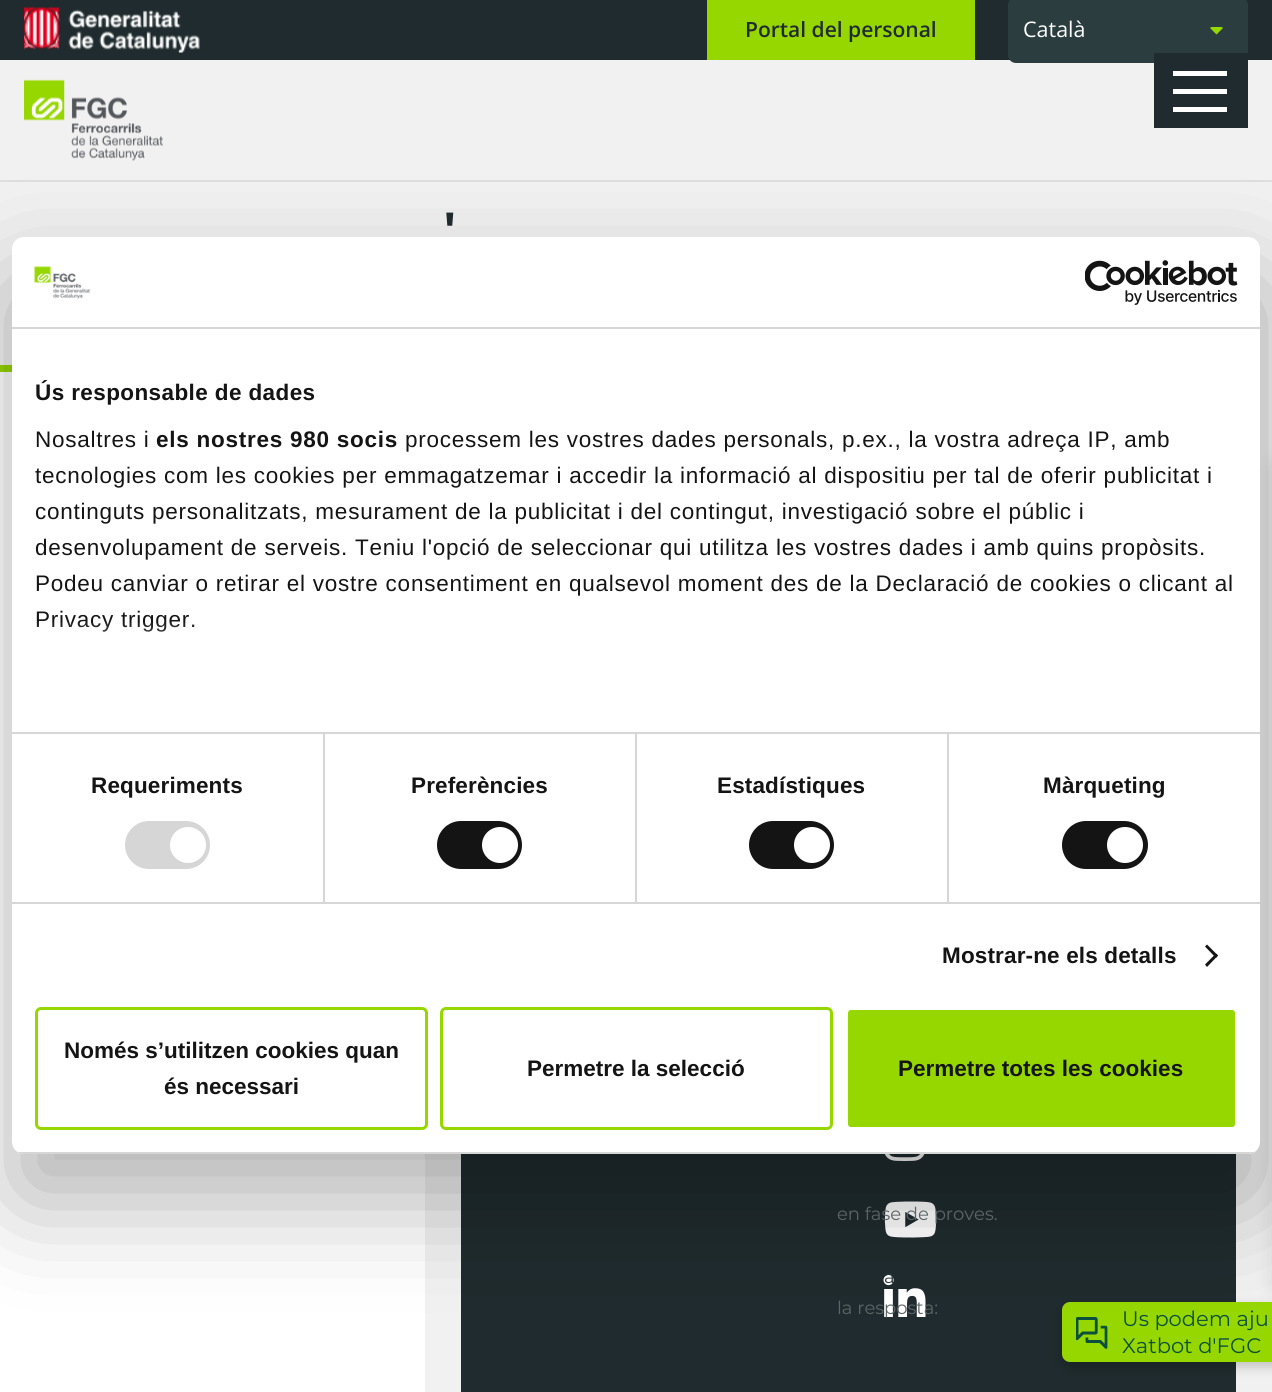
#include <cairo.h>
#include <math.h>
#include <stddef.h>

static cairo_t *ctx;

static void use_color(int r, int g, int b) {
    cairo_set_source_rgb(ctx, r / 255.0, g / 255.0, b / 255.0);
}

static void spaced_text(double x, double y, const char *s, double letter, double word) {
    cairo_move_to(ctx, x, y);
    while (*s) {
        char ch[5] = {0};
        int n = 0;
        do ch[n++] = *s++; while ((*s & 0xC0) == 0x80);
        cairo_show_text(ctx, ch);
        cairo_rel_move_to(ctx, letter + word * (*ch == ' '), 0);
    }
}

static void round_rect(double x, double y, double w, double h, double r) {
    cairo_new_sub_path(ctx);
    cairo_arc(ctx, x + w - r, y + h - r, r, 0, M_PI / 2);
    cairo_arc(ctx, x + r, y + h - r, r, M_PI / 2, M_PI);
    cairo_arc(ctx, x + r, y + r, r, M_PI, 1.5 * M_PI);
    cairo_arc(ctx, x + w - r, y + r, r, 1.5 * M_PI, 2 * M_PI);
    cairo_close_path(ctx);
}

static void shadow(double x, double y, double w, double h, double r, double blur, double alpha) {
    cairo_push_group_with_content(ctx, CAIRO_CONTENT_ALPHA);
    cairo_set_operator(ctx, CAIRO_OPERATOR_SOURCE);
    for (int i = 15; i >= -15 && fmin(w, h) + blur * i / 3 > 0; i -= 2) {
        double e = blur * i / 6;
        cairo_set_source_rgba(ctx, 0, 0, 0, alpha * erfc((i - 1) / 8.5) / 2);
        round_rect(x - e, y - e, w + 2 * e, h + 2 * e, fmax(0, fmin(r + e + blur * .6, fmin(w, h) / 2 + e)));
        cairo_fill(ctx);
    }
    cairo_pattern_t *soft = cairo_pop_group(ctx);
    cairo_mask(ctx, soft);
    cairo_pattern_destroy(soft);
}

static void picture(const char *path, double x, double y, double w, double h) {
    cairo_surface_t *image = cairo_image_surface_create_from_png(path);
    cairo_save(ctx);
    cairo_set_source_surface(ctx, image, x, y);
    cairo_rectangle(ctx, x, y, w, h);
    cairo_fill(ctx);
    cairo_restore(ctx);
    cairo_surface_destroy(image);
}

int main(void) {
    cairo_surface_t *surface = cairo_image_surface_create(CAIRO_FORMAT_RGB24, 1272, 1392);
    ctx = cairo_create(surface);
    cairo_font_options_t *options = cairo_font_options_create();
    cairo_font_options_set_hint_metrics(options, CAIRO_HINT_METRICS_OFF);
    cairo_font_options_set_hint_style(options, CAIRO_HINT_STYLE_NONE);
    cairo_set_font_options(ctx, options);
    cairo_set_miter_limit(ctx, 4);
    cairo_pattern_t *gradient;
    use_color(241, 241, 241);
    cairo_paint(ctx);
    use_color(31, 43, 46);
    cairo_rectangle(ctx, 0, 0, 1272, 60);
    cairo_fill(ctx);
    picture("img1.png", 24, 7, 176, 46);
    use_color(151, 215, 0);
    cairo_rectangle(ctx, 707, 0, 268, 60);
    cairo_fill(ctx);
    cairo_select_font_face(ctx, "Open Sans SemiBold", CAIRO_FONT_SLANT_NORMAL, CAIRO_FONT_WEIGHT_NORMAL);
    cairo_set_font_size(ctx, 21);
    use_color(31, 43, 46);
    cairo_move_to(ctx, 745, 37);
    cairo_show_text(ctx, "Portal del personal");
    use_color(43, 61, 63);
    round_rect(1008, -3, 240, 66, 8);
    cairo_fill(ctx);
    cairo_select_font_face(ctx, "Open Sans", CAIRO_FONT_SLANT_NORMAL, CAIRO_FONT_WEIGHT_NORMAL);
    cairo_set_font_size(ctx, 21.5);
    use_color(255, 255, 255);
    cairo_move_to(ctx, 1023, 37);
    cairo_show_text(ctx, "Català");
    use_color(151, 215, 0);
    cairo_new_path(ctx);
    cairo_move_to(ctx, 1212, 27);
    cairo_curve_to(ctx, 1211, 27, 1210.5, 27.5, 1210, 28);
    cairo_line_to(ctx, 1216.5, 34.5);
    cairo_line_to(ctx, 1223, 28);
    cairo_curve_to(ctx, 1222.5, 27.5, 1222, 27, 1221, 27);
    cairo_close_path(ctx);
    cairo_fill(ctx);
    use_color(222, 222, 222);
    cairo_rectangle(ctx, 0, 180, 1272, 2);
    cairo_fill(ctx);
    picture("img2.png", 24, 79, 139, 82);
    use_color(31, 43, 46);
    cairo_rectangle(ctx, 1154, 53, 94, 75);
    cairo_fill(ctx);
    use_color(255, 255, 255);
    cairo_rectangle(ctx, 1173, 89, 54, 5);
    cairo_fill(ctx);
    cairo_rectangle(ctx, 1173, 71, 54, 5);
    cairo_fill(ctx);
    cairo_rectangle(ctx, 1173, 107, 54, 5);
    cairo_fill(ctx);
    cairo_select_font_face(ctx, "Open Sans", CAIRO_FONT_SLANT_NORMAL, CAIRO_FONT_WEIGHT_BOLD);
    cairo_set_font_size(ctx, 51);
    use_color(31, 43, 46);
    cairo_move_to(ctx, 443, 249);
    cairo_show_text(ctx, "'");
    use_color(255, 255, 255);
    cairo_rectangle(ctx, 0, 372, 425, 1020);
    cairo_fill(ctx);
    use_color(151, 215, 0);
    cairo_rectangle(ctx, 0, 365, 12, 7);
    cairo_fill(ctx);
    use_color(31, 43, 46);
    cairo_rectangle(ctx, 461, 1154, 775, 238);
    cairo_fill(ctx);
    picture("img3.png", 885, 1154, 40, 7);
    picture("img4.png", 884, 1201, 53, 37);
    picture("img5.png", 883, 1275, 43, 42);
    use_color(0, 0, 0);
    shadow(1272, 462, 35, 831, 8, 9, 0.1);
    shadow(1062, 1307, 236, 60, 8, 6, 0.2);
    use_color(151, 215, 0);
    round_rect(1062, 1302, 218, 60, 8);
    cairo_fill(ctx);
    picture("img8.png", 1076, 1317, 32, 32);
    use_color(0, 0, 0);
    shadow(12, 285, 1248, 917, 12, 51, 0.3);
    use_color(255, 255, 255);
    round_rect(12, 237, 1248, 917, 12);
    cairo_fill(ctx);
    use_color(214, 214, 214);
    cairo_rectangle(ctx, 12, 327, 1248, 2);
    cairo_fill(ctx);
    picture("img6.png", 34, 266, 57, 33);
    picture("img7.png", 1085, 260, 153, 45);
    cairo_rectangle(ctx, 12, 732, 1248, 2);
    cairo_fill(ctx);
    cairo_select_font_face(ctx, "Liberation Sans", CAIRO_FONT_SLANT_NORMAL, CAIRO_FONT_WEIGHT_BOLD);
    cairo_set_font_size(ctx, 22.5);
    use_color(20, 20, 20);
    spaced_text(35, 400, "Ús responsable de dades", 0.4, 0);
    cairo_select_font_face(ctx, "Liberation Sans", CAIRO_FONT_SLANT_NORMAL, CAIRO_FONT_WEIGHT_NORMAL);
    spaced_text(35, 447, "Nosaltres i", 0.75, 0);
    cairo_select_font_face(ctx, "Liberation Sans", CAIRO_FONT_SLANT_NORMAL, CAIRO_FONT_WEIGHT_BOLD);
    spaced_text(156, 447, "els nostres 980 socis", 0.75, 0);
    cairo_select_font_face(ctx, "Liberation Sans", CAIRO_FONT_SLANT_NORMAL, CAIRO_FONT_WEIGHT_NORMAL);
    spaced_text(405, 447, "processem les vostres dades personals, p.ex., la vostra adreça IP, amb", 0.75, 0);
    spaced_text(35, 483, "tecnologies com les cookies per emmagatzemar i accedir la informació al dispositiu per tal de oferir publicitat i", 0.75, 0);
    spaced_text(35, 519, "continguts personalitzats, mesurament de la publicitat i del contingut, investigació sobre el públic i", 0.75, 0);
    spaced_text(35, 555, "desenvolupament de serveis. Teniu l'opció de seleccionar qui utilitza les vostres dades i amb quins propòsits.", 0.75, 0);
    spaced_text(35, 591, "Podeu canviar o retirar el vostre consentiment en qualsevol moment des de la Declaració de cookies o clicant al", 0.75, 0);
    spaced_text(35, 627, "Privacy trigger.", 0.75, 0);
    gradient = cairo_pattern_create_linear(626, 733, 626, 620);
    cairo_pattern_add_color_stop_rgba(gradient, 0, 1, 1, 1, 1);
    cairo_pattern_add_color_stop_rgba(gradient, 0.5, 1, 1, 1, 0.8);
    cairo_pattern_add_color_stop_rgba(gradient, 1, 1, 1, 1, 0);
    cairo_set_source(ctx, gradient);
    cairo_pattern_destroy(gradient);
    cairo_rectangle(ctx, 36, 622, 158, 10);
    cairo_fill(ctx);
    use_color(214, 214, 214);
    cairo_rectangle(ctx, 12, 902, 1248, 2);
    cairo_fill(ctx);
    cairo_rectangle(ctx, 323, 734, 2, 168);
    cairo_fill(ctx);
    cairo_select_font_face(ctx, "Liberation Sans", CAIRO_FONT_SLANT_NORMAL, CAIRO_FONT_WEIGHT_BOLD);
    use_color(20, 20, 20);
    spaced_text(91, 793, "Requeriments", 0.15, 0);
    use_color(214, 214, 214);
    round_rect(125, 821, 85, 48, 24);
    cairo_fill(ctx);
    use_color(255, 255, 255);
    cairo_arc(ctx, 188, 845, 18, 0, 2 * M_PI);
    cairo_fill(ctx);
    use_color(214, 214, 214);
    cairo_rectangle(ctx, 635, 734, 2, 168);
    cairo_fill(ctx);
    use_color(20, 20, 20);
    spaced_text(411, 793, "Preferències", 0.15, 0);
    round_rect(437, 821, 85, 48, 24);
    cairo_fill(ctx);
    use_color(255, 255, 255);
    cairo_arc(ctx, 500, 845, 18, 0, 2 * M_PI);
    cairo_fill(ctx);
    use_color(214, 214, 214);
    cairo_rectangle(ctx, 947, 734, 2, 168);
    cairo_fill(ctx);
    use_color(20, 20, 20);
    spaced_text(717, 793, "Estadístiques", 0.15, 0);
    round_rect(749, 821, 85, 48, 24);
    cairo_fill(ctx);
    use_color(255, 255, 255);
    cairo_arc(ctx, 812, 845, 18, 0, 2 * M_PI);
    cairo_fill(ctx);
    use_color(20, 20, 20);
    spaced_text(1043, 793, "Màrqueting", 0.15, 0);
    round_rect(1062, 821, 86, 48, 24);
    cairo_fill(ctx);
    use_color(255, 255, 255);
    cairo_arc(ctx, 1125, 845, 18, 0, 2 * M_PI);
    cairo_fill(ctx);
    use_color(20, 20, 20);
    spaced_text(942, 963, "Mostrar-ne els detalls", 0.15, 0);
    cairo_new_path(ctx);
    cairo_move_to(ctx, 1207, 944.5);
    cairo_line_to(ctx, 1218, 955.5);
    cairo_line_to(ctx, 1216, 958);
    cairo_line_to(ctx, 1205, 946.5);
    cairo_close_path(ctx);
    cairo_fill(ctx);
    cairo_new_path(ctx);
    cairo_move_to(ctx, 1216, 953.5);
    cairo_line_to(ctx, 1218, 955.5);
    cairo_line_to(ctx, 1207, 967);
    cairo_line_to(ctx, 1205, 964.5);
    cairo_close_path(ctx);
    cairo_fill(ctx);
    cairo_save(ctx);
    round_rect(12, 237, 1248, 917, 12);
    cairo_clip(ctx);
    use_color(214, 214, 214);
    cairo_rectangle(ctx, 12, 1152, 1248, 2);
    cairo_fill(ctx);
    cairo_restore(ctx);
    round_rect(36.5, 1008.5, 390, 120, 4.5);
    use_color(151, 215, 0);
    cairo_set_line_width(ctx, 3);
    cairo_stroke(ctx);
    use_color(20, 20, 20);
    cairo_move_to(ctx, 64, 1058);
    cairo_show_text(ctx, "Només s’utilitzen cookies quan");
    cairo_move_to(ctx, 164, 1094);
    cairo_show_text(ctx, "és necessari");
    round_rect(441.5, 1008.5, 390, 120, 4.5);
    use_color(151, 215, 0);
    cairo_stroke(ctx);
    use_color(20, 20, 20);
    cairo_move_to(ctx, 527, 1076);
    cairo_show_text(ctx, "Permetre la selecció");
    use_color(151, 215, 0);
    round_rect(846.5, 1008.5, 390, 120, 4.5);
    cairo_fill_preserve(ctx);
    use_color(255, 255, 255);
    cairo_stroke(ctx);
    use_color(20, 20, 20);
    cairo_move_to(ctx, 898, 1076);
    cairo_show_text(ctx, "Permetre totes les cookies");
    cairo_select_font_face(ctx, "Montserrat", CAIRO_FONT_SLANT_NORMAL, CAIRO_FONT_WEIGHT_NORMAL);
    cairo_set_font_size(ctx, 18);
    use_color(91, 100, 102);
    cairo_move_to(ctx, 837, 1220);
    cairo_show_text(ctx, "en fase de proves.");
    use_color(42, 53, 56);
    cairo_move_to(ctx, 884, 1283);
    cairo_show_text(ctx, "a");
    use_color(91, 100, 102);
    cairo_move_to(ctx, 837, 1314);
    cairo_show_text(ctx, "la resposta:");
    cairo_set_font_size(ctx, 21);
    use_color(10, 80, 60);
    cairo_move_to(ctx, 1122, 1326);
    cairo_show_text(ctx, "Us podem aju");
    cairo_move_to(ctx, 1122, 1353);
    cairo_show_text(ctx, "Xatbot d'FGC");
    cairo_surface_write_to_png(surface, "result.png");
    cairo_font_options_destroy(options);
    cairo_destroy(ctx);
    cairo_surface_destroy(surface);
    return 0;
}
